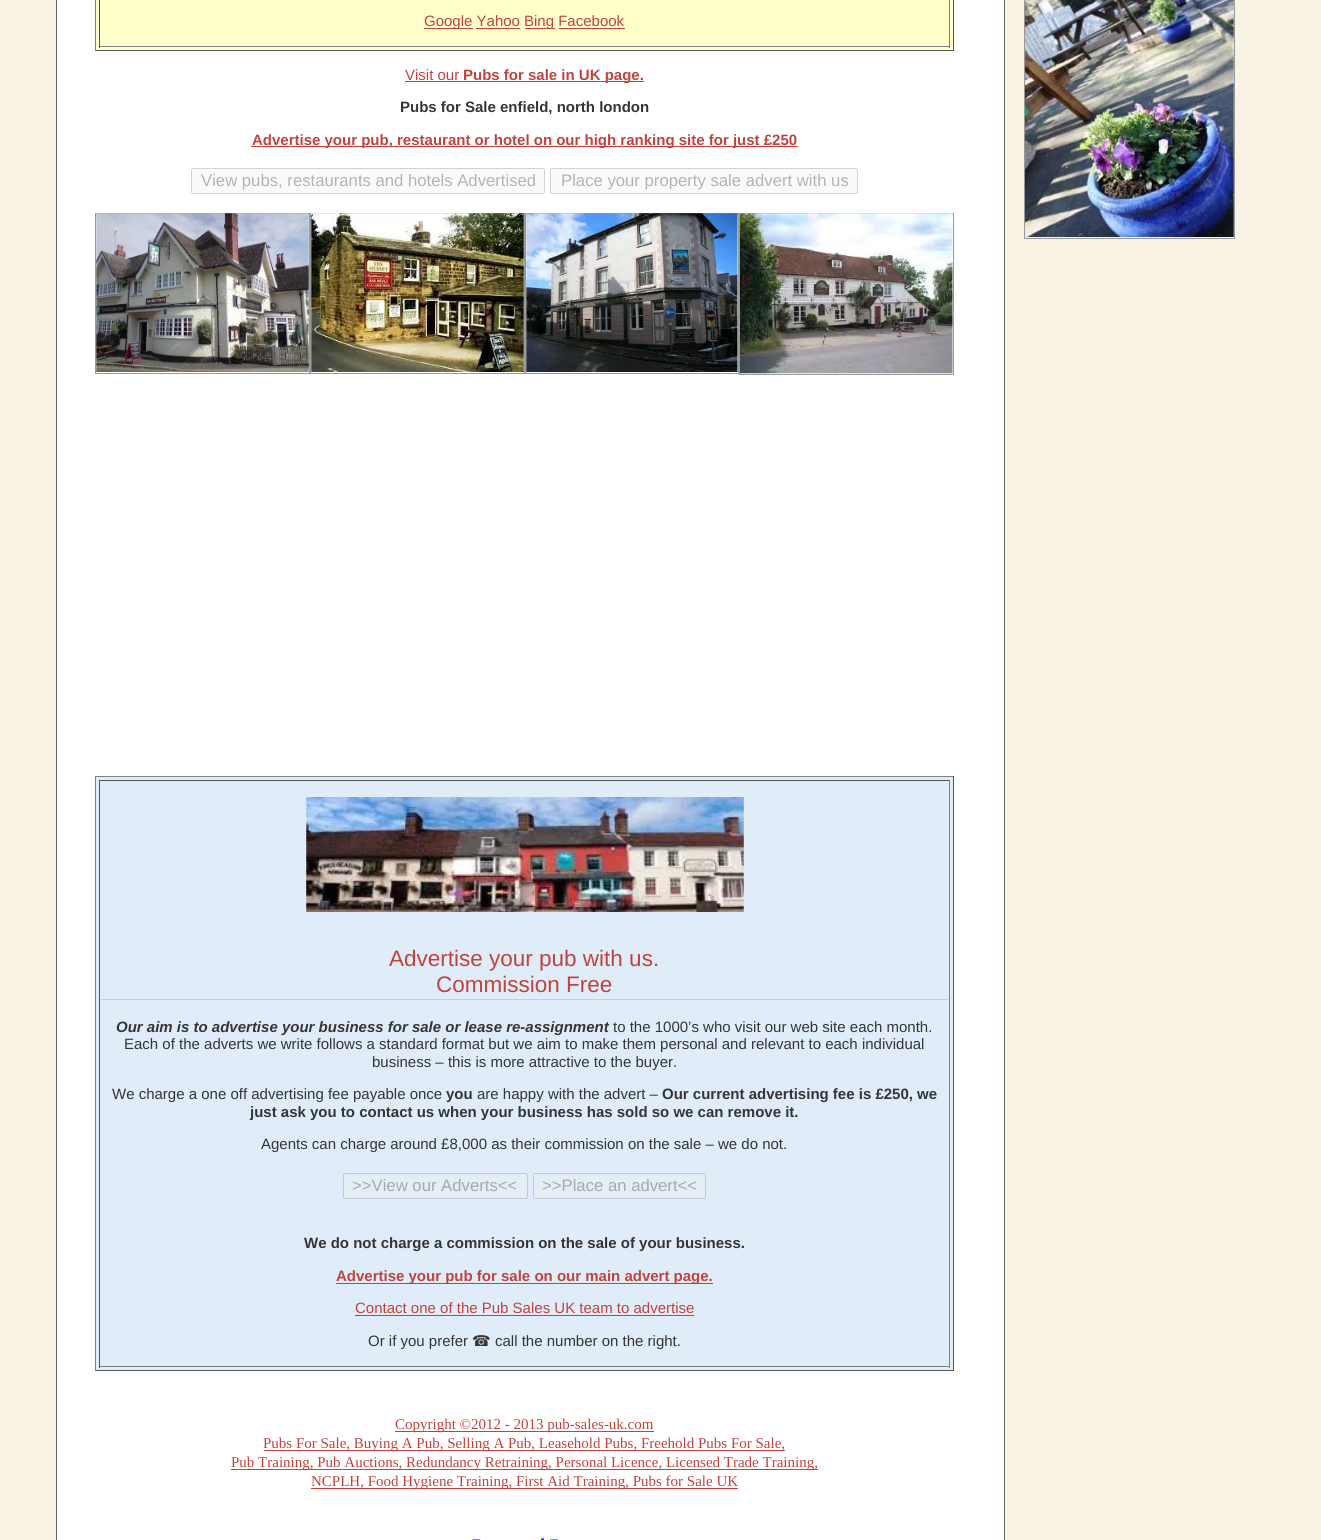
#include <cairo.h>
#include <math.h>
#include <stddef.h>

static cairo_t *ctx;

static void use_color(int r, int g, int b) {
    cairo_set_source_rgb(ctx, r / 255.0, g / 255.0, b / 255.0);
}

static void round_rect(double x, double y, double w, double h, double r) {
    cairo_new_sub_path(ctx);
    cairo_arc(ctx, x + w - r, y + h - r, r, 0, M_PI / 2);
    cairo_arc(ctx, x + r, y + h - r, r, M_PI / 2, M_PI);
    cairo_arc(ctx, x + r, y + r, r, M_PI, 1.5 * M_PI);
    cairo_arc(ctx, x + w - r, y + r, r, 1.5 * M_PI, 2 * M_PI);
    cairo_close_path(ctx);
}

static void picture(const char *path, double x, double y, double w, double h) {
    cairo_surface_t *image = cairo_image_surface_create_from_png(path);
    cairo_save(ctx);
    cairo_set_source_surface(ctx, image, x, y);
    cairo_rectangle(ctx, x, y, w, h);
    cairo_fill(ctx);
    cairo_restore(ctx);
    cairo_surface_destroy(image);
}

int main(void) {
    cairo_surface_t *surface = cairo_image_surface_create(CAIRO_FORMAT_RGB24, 1321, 1540);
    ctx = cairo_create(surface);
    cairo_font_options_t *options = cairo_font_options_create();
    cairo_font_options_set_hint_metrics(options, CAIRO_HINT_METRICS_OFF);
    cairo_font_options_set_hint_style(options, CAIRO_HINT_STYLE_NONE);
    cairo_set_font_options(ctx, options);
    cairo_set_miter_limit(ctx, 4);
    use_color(249, 243, 230);
    cairo_paint(ctx);
    use_color(255, 255, 255);
    cairo_rectangle(ctx, 56.5, -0.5, 948, 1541);
    cairo_fill_preserve(ctx);
    use_color(102, 102, 102);
    cairo_set_line_width(ctx, 1);
    cairo_stroke(ctx);
    use_color(255, 255, 204);
    cairo_rectangle(ctx, 96, 0, 857, 50);
    cairo_fill(ctx);
    use_color(85, 85, 85);
    cairo_rectangle(ctx, 953, 0, 1, 51);
    cairo_fill(ctx);
    cairo_rectangle(ctx, 95, 50, 859, 1);
    cairo_fill(ctx);
    use_color(128, 128, 128);
    cairo_rectangle(ctx, 95, 0, 1, 51);
    cairo_fill(ctx);
    cairo_rectangle(ctx, 949, 0, 1, 48);
    cairo_fill(ctx);
    cairo_rectangle(ctx, 99, 46, 851, 1);
    cairo_fill(ctx);
    use_color(85, 85, 85);
    cairo_rectangle(ctx, 99, 0, 1, 48);
    cairo_fill(ctx);
    use_color(193, 67, 61);
    cairo_rectangle(ctx, 424, 28, 49, 1);
    cairo_fill(ctx);
    cairo_select_font_face(ctx, "Liberation Sans", CAIRO_FONT_SLANT_NORMAL, CAIRO_FONT_WEIGHT_NORMAL);
    cairo_set_font_size(ctx, 15);
    cairo_move_to(ctx, 424, 26);
    cairo_show_text(ctx, "Google Yahoo");
    cairo_rectangle(ctx, 525, 28, 30, 1);
    cairo_fill(ctx);
    cairo_move_to(ctx, 524, 26);
    cairo_show_text(ctx, "Bing Facebook");
    cairo_rectangle(ctx, 476, 28, 44, 1);
    cairo_fill(ctx);
    cairo_rectangle(ctx, 559, 28, 66, 1);
    cairo_fill(ctx);
    cairo_move_to(ctx, 405, 80);
    cairo_show_text(ctx, "Visit our");
    cairo_rectangle(ctx, 405, 81, 239, 1);
    cairo_fill(ctx);
    cairo_select_font_face(ctx, "Liberation Sans", CAIRO_FONT_SLANT_NORMAL, CAIRO_FONT_WEIGHT_BOLD);
    cairo_move_to(ctx, 463, 80);
    cairo_show_text(ctx, "Pubs for sale in UK page.");
    use_color(53, 53, 53);
    cairo_move_to(ctx, 400, 112);
    cairo_show_text(ctx, "Pubs for Sale enfield, north london");
    use_color(193, 67, 61);
    cairo_rectangle(ctx, 251, 146, 547, 1);
    cairo_fill(ctx);
    cairo_move_to(ctx, 252, 145);
    cairo_show_text(ctx, "Advertise your pub, restaurant or hotel on our high ranking site for just £250");
    use_color(250, 250, 250);
    round_rect(191.5, 168.5, 353, 25, 2);
    cairo_fill_preserve(ctx);
    use_color(210, 210, 210);
    cairo_stroke(ctx);
    cairo_select_font_face(ctx, "Liberation Sans", CAIRO_FONT_SLANT_NORMAL, CAIRO_FONT_WEIGHT_NORMAL);
    cairo_set_font_size(ctx, 16.7);
    use_color(180, 180, 180);
    cairo_move_to(ctx, 201, 186);
    cairo_show_text(ctx, "View pubs, restaurants and hotels Advertised");
    use_color(250, 250, 250);
    round_rect(550.5, 168.5, 307, 25, 2);
    cairo_fill_preserve(ctx);
    use_color(210, 210, 210);
    cairo_stroke(ctx);
    use_color(180, 180, 180);
    cairo_move_to(ctx, 561, 186);
    cairo_show_text(ctx, "Place your property sale advert with us");
    cairo_rectangle(ctx, 95.5, 213.5, 214, 160);
    use_color(153, 153, 153);
    cairo_stroke(ctx);
    picture("img1.png", 96, 213, 213, 159);
    cairo_rectangle(ctx, 310.5, 213.5, 214, 160);
    cairo_stroke(ctx);
    picture("img2.png", 311, 213, 213, 159);
    cairo_rectangle(ctx, 525.5, 213.5, 213, 160);
    cairo_stroke(ctx);
    picture("img3.png", 526, 213, 212, 159);
    cairo_rectangle(ctx, 739.5, 213.5, 214, 161);
    cairo_stroke(ctx);
    picture("img4.png", 740, 213, 213, 161);
    use_color(224, 236, 248);
    cairo_rectangle(ctx, 96, 777, 857, 593);
    cairo_fill(ctx);
    use_color(128, 128, 128);
    cairo_rectangle(ctx, 95, 776, 859, 1);
    cairo_fill(ctx);
    use_color(85, 85, 85);
    cairo_rectangle(ctx, 953, 776, 1, 595);
    cairo_fill(ctx);
    cairo_rectangle(ctx, 95, 1370, 859, 1);
    cairo_fill(ctx);
    use_color(128, 128, 128);
    cairo_rectangle(ctx, 95, 776, 1, 595);
    cairo_fill(ctx);
    use_color(85, 85, 85);
    cairo_rectangle(ctx, 99, 780, 851, 1);
    cairo_fill(ctx);
    use_color(128, 128, 128);
    cairo_rectangle(ctx, 949, 780, 1, 588);
    cairo_fill(ctx);
    cairo_rectangle(ctx, 99, 1366, 851, 1);
    cairo_fill(ctx);
    use_color(85, 85, 85);
    cairo_rectangle(ctx, 99, 780, 1, 588);
    cairo_fill(ctx);
    picture("img5.png", 306, 797, 438, 115);
    use_color(204, 204, 204);
    cairo_rectangle(ctx, 101, 999, 847, 1);
    cairo_fill(ctx);
    cairo_set_font_size(ctx, 22.5);
    use_color(193, 67, 61);
    cairo_move_to(ctx, 389, 966);
    cairo_show_text(ctx, "Advertise your pub with us.");
    cairo_move_to(ctx, 436, 992);
    cairo_show_text(ctx, "Commission Free");
    cairo_select_font_face(ctx, "Liberation Sans", CAIRO_FONT_SLANT_ITALIC, CAIRO_FONT_WEIGHT_BOLD);
    cairo_set_font_size(ctx, 15);
    use_color(53, 53, 53);
    cairo_move_to(ctx, 116, 1032);
    cairo_show_text(ctx, "Our aim is to advertise your business for sale or lease re-assignment");
    cairo_select_font_face(ctx, "Liberation Sans", CAIRO_FONT_SLANT_NORMAL, CAIRO_FONT_WEIGHT_NORMAL);
    cairo_move_to(ctx, 613, 1032);
    cairo_show_text(ctx, "to the 1000’s who visit our web site each month.");
    cairo_move_to(ctx, 124, 1049);
    cairo_show_text(ctx, "Each of the adverts we write follows a standard format but we aim to make them personal and relevant to each individual");
    cairo_move_to(ctx, 372, 1067);
    cairo_show_text(ctx, "business – this is more attractive to the buyer.");
    cairo_move_to(ctx, 112, 1099);
    cairo_show_text(ctx, "We charge a one off advertising fee payable once");
    cairo_select_font_face(ctx, "Liberation Sans", CAIRO_FONT_SLANT_NORMAL, CAIRO_FONT_WEIGHT_BOLD);
    cairo_move_to(ctx, 446, 1099);
    cairo_show_text(ctx, "you");
    cairo_select_font_face(ctx, "Liberation Sans", CAIRO_FONT_SLANT_NORMAL, CAIRO_FONT_WEIGHT_NORMAL);
    cairo_move_to(ctx, 477, 1099);
    cairo_show_text(ctx, "are happy with the advert –");
    cairo_select_font_face(ctx, "Liberation Sans", CAIRO_FONT_SLANT_NORMAL, CAIRO_FONT_WEIGHT_BOLD);
    cairo_move_to(ctx, 662, 1099);
    cairo_show_text(ctx, "Our current advertising fee is £250, we");
    cairo_move_to(ctx, 250, 1117);
    cairo_show_text(ctx, "just ask you to contact us when your business has sold so we can remove it.");
    cairo_select_font_face(ctx, "Liberation Sans", CAIRO_FONT_SLANT_NORMAL, CAIRO_FONT_WEIGHT_NORMAL);
    cairo_move_to(ctx, 261, 1149);
    cairo_show_text(ctx, "Agents can charge around £8,000 as their commission on the sale – we do not.");
    use_color(229, 237, 245);
    round_rect(343.5, 1173.5, 184, 25, 2);
    cairo_fill_preserve(ctx);
    use_color(196, 201, 207);
    cairo_stroke(ctx);
    cairo_set_font_size(ctx, 16.7);
    use_color(165, 171, 176);
    cairo_move_to(ctx, 352, 1191);
    cairo_show_text(ctx, ">>View our Adverts<<");
    use_color(229, 237, 245);
    round_rect(533.5, 1173.5, 172, 25, 2);
    cairo_fill_preserve(ctx);
    use_color(196, 201, 207);
    cairo_stroke(ctx);
    use_color(165, 171, 176);
    cairo_move_to(ctx, 542, 1191);
    cairo_show_text(ctx, ">>Place an advert<<");
    cairo_select_font_face(ctx, "Liberation Sans", CAIRO_FONT_SLANT_NORMAL, CAIRO_FONT_WEIGHT_BOLD);
    cairo_set_font_size(ctx, 15);
    use_color(53, 53, 53);
    cairo_move_to(ctx, 304, 1248);
    cairo_show_text(ctx, "We do not charge a commission on the sale of your business.");
    use_color(193, 67, 61);
    cairo_rectangle(ctx, 336, 1283, 377, 1);
    cairo_fill(ctx);
    cairo_move_to(ctx, 336, 1281);
    cairo_show_text(ctx, "Advertise your pub for sale on our main advert page.");
    cairo_select_font_face(ctx, "Liberation Sans", CAIRO_FONT_SLANT_NORMAL, CAIRO_FONT_WEIGHT_NORMAL);
    cairo_move_to(ctx, 355, 1313);
    cairo_show_text(ctx, "Contact one of the Pub Sales UK team to advertise");
    cairo_rectangle(ctx, 355, 1315, 339, 1);
    cairo_fill(ctx);
    use_color(53, 53, 53);
    cairo_move_to(ctx, 368, 1346);
    cairo_show_text(ctx, "Or if you prefer");
    cairo_select_font_face(ctx, "DejaVu Sans", CAIRO_FONT_SLANT_NORMAL, CAIRO_FONT_WEIGHT_NORMAL);
    cairo_move_to(ctx, 472, 1346);
    cairo_show_text(ctx, "☎");
    cairo_select_font_face(ctx, "Liberation Sans", CAIRO_FONT_SLANT_NORMAL, CAIRO_FONT_WEIGHT_NORMAL);
    cairo_move_to(ctx, 495, 1346);
    cairo_show_text(ctx, "call the number on the right.");
    use_color(193, 67, 61);
    cairo_rectangle(ctx, 395, 1431, 259, 1);
    cairo_fill(ctx);
    cairo_select_font_face(ctx, "Liberation Serif", CAIRO_FONT_SLANT_NORMAL, CAIRO_FONT_WEIGHT_NORMAL);
    cairo_move_to(ctx, 395, 1429);
    cairo_show_text(ctx, "Copyright ©2012 - 2013 pub-sales-uk.com");
    cairo_rectangle(ctx, 264, 1450, 521, 1);
    cairo_fill(ctx);
    cairo_move_to(ctx, 263, 1448);
    cairo_show_text(ctx, "Pubs For Sale, Buying A Pub, Selling A Pub, Leasehold Pubs, Freehold Pubs For Sale,");
    cairo_rectangle(ctx, 231, 1469, 587, 1);
    cairo_fill(ctx);
    cairo_move_to(ctx, 231, 1467);
    cairo_show_text(ctx, "Pub Training, Pub Auctions, Redundancy Retraining, Personal Licence, Licensed Trade Training,");
    cairo_rectangle(ctx, 311, 1488, 427, 1);
    cairo_fill(ctx);
    cairo_move_to(ctx, 311, 1486);
    cairo_show_text(ctx, "NCPLH, Food Hygiene Training, First Aid Training, Pubs for Sale UK");
    picture("img6.png", 472, 1538, 86, 2);
    cairo_rectangle(ctx, 1024.5, -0.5, 210, 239);
    use_color(153, 153, 153);
    cairo_stroke(ctx);
    picture("img7.png", 1025, 0, 209, 237);
    cairo_surface_write_to_png(surface, "result.png");
    cairo_font_options_destroy(options);
    cairo_destroy(ctx);
    cairo_surface_destroy(surface);
    return 0;
}
